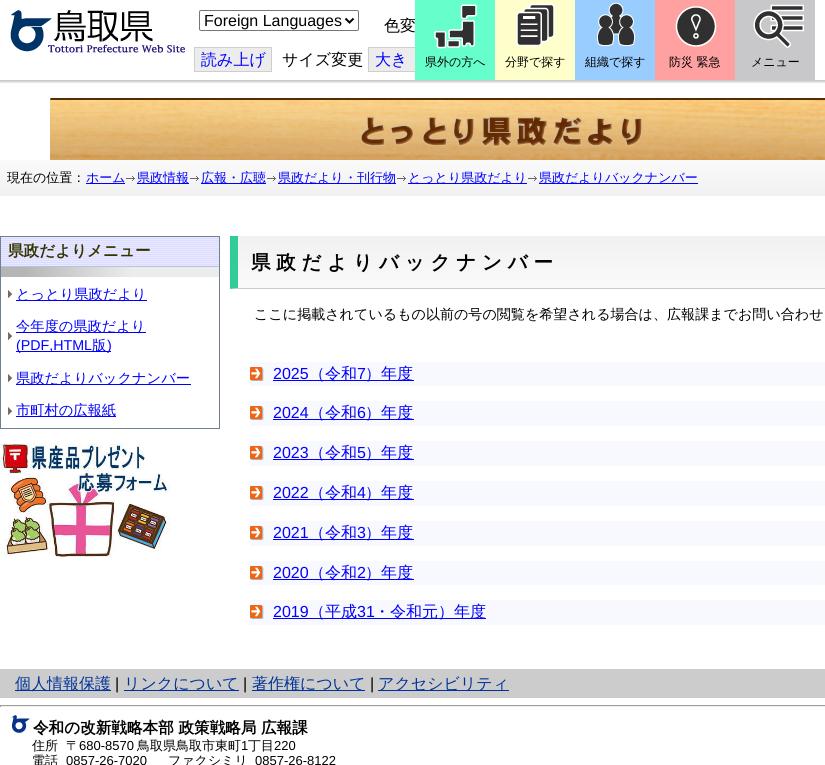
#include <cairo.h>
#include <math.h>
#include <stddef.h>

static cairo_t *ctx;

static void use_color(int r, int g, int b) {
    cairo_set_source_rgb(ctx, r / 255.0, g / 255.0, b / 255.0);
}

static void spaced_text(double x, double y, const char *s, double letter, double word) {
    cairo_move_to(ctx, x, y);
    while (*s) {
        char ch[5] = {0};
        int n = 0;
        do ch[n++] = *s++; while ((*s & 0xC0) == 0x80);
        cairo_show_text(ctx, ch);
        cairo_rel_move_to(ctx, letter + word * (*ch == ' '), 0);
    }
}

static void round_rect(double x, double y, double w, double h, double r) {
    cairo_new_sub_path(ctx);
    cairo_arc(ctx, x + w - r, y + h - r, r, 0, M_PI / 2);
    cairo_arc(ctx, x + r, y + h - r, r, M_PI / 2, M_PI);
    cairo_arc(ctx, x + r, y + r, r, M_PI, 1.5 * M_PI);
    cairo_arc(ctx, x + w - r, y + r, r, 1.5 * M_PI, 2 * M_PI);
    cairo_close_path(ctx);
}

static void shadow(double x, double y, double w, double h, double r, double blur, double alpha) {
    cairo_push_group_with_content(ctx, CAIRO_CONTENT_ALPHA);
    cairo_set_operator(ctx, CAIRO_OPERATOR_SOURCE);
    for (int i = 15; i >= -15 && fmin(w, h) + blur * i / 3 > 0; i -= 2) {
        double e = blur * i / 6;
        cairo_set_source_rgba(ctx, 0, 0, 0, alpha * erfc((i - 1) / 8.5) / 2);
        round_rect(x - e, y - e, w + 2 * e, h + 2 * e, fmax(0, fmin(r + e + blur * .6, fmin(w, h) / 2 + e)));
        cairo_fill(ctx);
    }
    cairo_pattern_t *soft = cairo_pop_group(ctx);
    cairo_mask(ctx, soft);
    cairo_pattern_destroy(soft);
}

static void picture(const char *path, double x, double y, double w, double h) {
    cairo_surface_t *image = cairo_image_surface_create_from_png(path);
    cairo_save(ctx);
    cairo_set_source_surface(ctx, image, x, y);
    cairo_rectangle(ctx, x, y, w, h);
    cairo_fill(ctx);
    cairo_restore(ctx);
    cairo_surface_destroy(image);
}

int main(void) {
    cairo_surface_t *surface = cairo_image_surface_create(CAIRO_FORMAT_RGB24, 825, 765);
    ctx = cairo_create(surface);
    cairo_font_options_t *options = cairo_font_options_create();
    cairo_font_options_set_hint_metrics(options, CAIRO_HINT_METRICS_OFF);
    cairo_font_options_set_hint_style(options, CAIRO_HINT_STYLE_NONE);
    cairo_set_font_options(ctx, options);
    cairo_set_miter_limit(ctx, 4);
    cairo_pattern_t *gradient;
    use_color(255, 255, 255);
    cairo_paint(ctx);
    cairo_save(ctx);
    cairo_rectangle(ctx, 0, 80, 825, 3);
    cairo_clip(ctx);
    use_color(0, 0, 0);
    shadow(-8, 1, 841, 80, 0, 2.5, 0.1);
    shadow(-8, 1, 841, 80, 0, 2.5, 0.1);
    shadow(-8, 1, 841, 80, 0, 2.5, 0.1);
    shadow(-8, 1, 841, 80, 0, 2.5, 0.1);
    cairo_restore(ctx);
    picture("img1.png", 10, 10, 175, 43);
    round_rect(199.5, 10.5, 159, 20, 1.5);
    use_color(118, 118, 118);
    cairo_set_line_width(ctx, 1);
    cairo_stroke(ctx);
    cairo_new_path(ctx);
    cairo_move_to(ctx, 345.5, 18.5);
    cairo_line_to(ctx, 349.5, 22.5);
    cairo_line_to(ctx, 353.5, 18.5);
    use_color(0, 0, 0);
    cairo_set_line_width(ctx, 2);
    cairo_stroke(ctx);
    cairo_select_font_face(ctx, "Liberation Sans", CAIRO_FONT_SLANT_NORMAL, CAIRO_FONT_WEIGHT_NORMAL);
    cairo_set_font_size(ctx, 16);
    cairo_move_to(ctx, 204, 26);
    cairo_show_text(ctx, "Foreign Languages");
    cairo_select_font_face(ctx, "WenQuanYi Zen Hei Medium", CAIRO_FONT_SLANT_NORMAL, CAIRO_FONT_WEIGHT_NORMAL);
    cairo_move_to(ctx, 384, 31);
    cairo_show_text(ctx, "色変");
    use_color(236, 236, 236);
    cairo_rectangle(ctx, 194.5, 47.5, 77, 24);
    cairo_fill_preserve(ctx);
    use_color(206, 206, 206);
    cairo_set_line_width(ctx, 1);
    cairo_stroke(ctx);
    use_color(0, 0, 255);
    cairo_move_to(ctx, 201, 65);
    cairo_show_text(ctx, "読み上げ");
    use_color(0, 0, 0);
    cairo_move_to(ctx, 282, 65);
    cairo_show_text(ctx, "サイズ変更");
    use_color(236, 236, 236);
    cairo_rectangle(ctx, 369, 48, 46, 23);
    cairo_fill(ctx);
    use_color(0, 0, 255);
    cairo_move_to(ctx, 375, 65);
    cairo_show_text(ctx, "大き");
    use_color(206, 206, 206);
    cairo_rectangle(ctx, 368, 47, 47, 1);
    cairo_fill(ctx);
    cairo_rectangle(ctx, 368, 71, 47, 1);
    cairo_fill(ctx);
    cairo_rectangle(ctx, 368, 47, 1, 25);
    cairo_fill(ctx);
    use_color(102, 255, 204);
    cairo_rectangle(ctx, 415, 0, 80, 80);
    cairo_fill(ctx);
    picture("img2.png", 434, 4, 43, 45);
    cairo_set_font_size(ctx, 12);
    use_color(0, 0, 0);
    cairo_move_to(ctx, 425, 66);
    cairo_show_text(ctx, "県外の方へ");
    use_color(255, 255, 204);
    cairo_rectangle(ctx, 495, 0, 80, 80);
    cairo_fill(ctx);
    picture("img3.png", 516, 3, 39, 44);
    use_color(0, 0, 0);
    cairo_move_to(ctx, 505, 66);
    cairo_show_text(ctx, "分野で探す");
    use_color(153, 204, 255);
    cairo_rectangle(ctx, 575, 0, 80, 80);
    cairo_fill(ctx);
    picture("img4.png", 597, 2, 39, 44);
    use_color(0, 0, 0);
    cairo_move_to(ctx, 585, 66);
    cairo_show_text(ctx, "組織で探す");
    use_color(255, 161, 161);
    cairo_rectangle(ctx, 655, 0, 80, 80);
    cairo_fill(ctx);
    picture("img5.png", 675, 6, 42, 41);
    use_color(0, 0, 0);
    cairo_move_to(ctx, 669, 66);
    cairo_show_text(ctx, "防災 緊急");
    use_color(200, 200, 203);
    cairo_rectangle(ctx, 735, 0, 80, 80);
    cairo_fill(ctx);
    picture("img6.png", 753, 4, 51, 44);
    use_color(0, 0, 0);
    cairo_move_to(ctx, 751, 66);
    cairo_show_text(ctx, "メニュー");
    picture("img7.png", 50, 98, 775, 62);
    gradient = cairo_pattern_create_linear(500, 160, 500, 196);
    cairo_pattern_add_color_stop_rgba(gradient, 0, 0.98, 0.98, 0.98, 1);
    cairo_pattern_add_color_stop_rgba(gradient, 1, 0.945, 0.945, 0.945, 1);
    cairo_set_source(ctx, gradient);
    cairo_pattern_destroy(gradient);
    cairo_rectangle(ctx, 0, 160, 825, 36);
    cairo_fill(ctx);
    cairo_set_font_size(ctx, 13);
    use_color(0, 0, 0);
    cairo_move_to(ctx, 7, 182);
    cairo_show_text(ctx, "現在の位置：");
    use_color(0, 0, 255);
    cairo_rectangle(ctx, 86, 183, 39, 1);
    cairo_fill(ctx);
    cairo_move_to(ctx, 86, 182);
    cairo_show_text(ctx, "ホーム");
    picture("img8.png", 126, 176, 9, 5);
    cairo_rectangle(ctx, 137, 183, 52, 1);
    cairo_fill(ctx);
    cairo_move_to(ctx, 137, 182);
    cairo_show_text(ctx, "県政情報");
    picture("img8.png", 190, 176, 9, 5);
    cairo_rectangle(ctx, 201, 183, 65, 1);
    cairo_fill(ctx);
    cairo_move_to(ctx, 201, 182);
    cairo_show_text(ctx, "広報・広聴");
    picture("img8.png", 267, 176, 9, 5);
    cairo_rectangle(ctx, 278, 183, 118, 1);
    cairo_fill(ctx);
    cairo_move_to(ctx, 278, 182);
    cairo_show_text(ctx, "県政だより・刊行物");
    picture("img8.png", 397, 176, 9, 5);
    cairo_rectangle(ctx, 408, 183, 119, 1);
    cairo_fill(ctx);
    cairo_move_to(ctx, 408, 182);
    cairo_show_text(ctx, "とっとり県政だより");
    picture("img8.png", 528, 176, 9, 5);
    cairo_rectangle(ctx, 539, 183, 159, 1);
    cairo_fill(ctx);
    cairo_move_to(ctx, 539, 182);
    cairo_show_text(ctx, "県政だよりバックナンバー");
    cairo_rectangle(ctx, 0.5, 236.5, 219, 192);
    use_color(112, 128, 144);
    cairo_stroke(ctx);
    picture("img9.png", 1, 237, 218, 29);
    use_color(176, 196, 222);
    cairo_rectangle(ctx, 1, 266, 218, 1);
    cairo_fill(ctx);
    cairo_select_font_face(ctx, "WenQuanYi Zen Hei", CAIRO_FONT_SLANT_NORMAL, CAIRO_FONT_WEIGHT_BOLD);
    cairo_set_font_size(ctx, 15.6);
    use_color(51, 51, 0);
    cairo_move_to(ctx, 8, 256);
    cairo_show_text(ctx, "県政だよりメニュー");
    gradient = cairo_pattern_create_linear(1, 272, 219, 272);
    cairo_pattern_add_color_stop_rgba(gradient, 0, 0.71, 0.71, 0.71, 1);
    cairo_pattern_add_color_stop_rgba(gradient, 0.1, 0.71, 0.71, 0.71, 1);
    cairo_pattern_add_color_stop_rgba(gradient, 0.6, 0.922, 0.925, 0.925, 1);
    cairo_pattern_add_color_stop_rgba(gradient, 1, 0.922, 0.925, 0.925, 1);
    cairo_set_source(ctx, gradient);
    cairo_pattern_destroy(gradient);
    cairo_rectangle(ctx, 1, 267, 218, 10);
    cairo_fill(ctx);
    picture("img10.png", 8, 290, 4, 8);
    use_color(0, 0, 255);
    cairo_rectangle(ctx, 16, 300, 131, 1);
    cairo_fill(ctx);
    cairo_select_font_face(ctx, "WenQuanYi Zen Hei Medium", CAIRO_FONT_SLANT_NORMAL, CAIRO_FONT_WEIGHT_NORMAL);
    cairo_set_font_size(ctx, 14.25);
    cairo_move_to(ctx, 16, 299);
    cairo_show_text(ctx, "とっとり県政だより");
    picture("img10.png", 8, 332, 4, 8);
    cairo_rectangle(ctx, 16, 332, 130, 1);
    cairo_fill(ctx);
    cairo_move_to(ctx, 16, 331);
    cairo_show_text(ctx, "今年度の県政だより");
    cairo_rectangle(ctx, 16, 351, 95, 1);
    cairo_fill(ctx);
    cairo_select_font_face(ctx, "Liberation Sans", CAIRO_FONT_SLANT_NORMAL, CAIRO_FONT_WEIGHT_NORMAL);
    cairo_move_to(ctx, 16, 350);
    cairo_show_text(ctx, "(PDF,HTML");
    cairo_select_font_face(ctx, "WenQuanYi Zen Hei Medium", CAIRO_FONT_SLANT_NORMAL, CAIRO_FONT_WEIGHT_NORMAL);
    cairo_move_to(ctx, 92, 350);
    cairo_show_text(ctx, "版");
    cairo_select_font_face(ctx, "Liberation Sans", CAIRO_FONT_SLANT_NORMAL, CAIRO_FONT_WEIGHT_NORMAL);
    cairo_move_to(ctx, 107, 350);
    cairo_show_text(ctx, ")");
    picture("img10.png", 8, 374, 4, 8);
    cairo_rectangle(ctx, 16, 384, 175, 1);
    cairo_fill(ctx);
    cairo_select_font_face(ctx, "WenQuanYi Zen Hei Medium", CAIRO_FONT_SLANT_NORMAL, CAIRO_FONT_WEIGHT_NORMAL);
    cairo_move_to(ctx, 16, 383);
    cairo_show_text(ctx, "県政だよりバックナンバー");
    picture("img10.png", 8, 407, 4, 8);
    cairo_rectangle(ctx, 16, 416, 100, 1);
    cairo_fill(ctx);
    cairo_move_to(ctx, 16, 415);
    cairo_show_text(ctx, "市町村の広報紙");
    picture("img11.png", 0, 443, 170, 114);
    gradient = cairo_pattern_create_linear(619, 236, 619, 288);
    cairo_pattern_add_color_stop_rgba(gradient, 0, 0.945, 0.945, 0.945, 1);
    cairo_pattern_add_color_stop_rgba(gradient, 1, 0.98, 0.98, 0.98, 1);
    cairo_set_source(ctx, gradient);
    cairo_pattern_destroy(gradient);
    cairo_rectangle(ctx, 238, 236, 587, 52);
    cairo_fill(ctx);
    use_color(204, 204, 204);
    cairo_new_path(ctx);
    cairo_move_to(ctx, 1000, 289);
    cairo_line_to(ctx, 230, 289);
    cairo_line_to(ctx, 238, 288);
    cairo_line_to(ctx, 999, 288);
    cairo_close_path(ctx);
    cairo_fill(ctx);
    use_color(51, 204, 153);
    cairo_new_path(ctx);
    cairo_move_to(ctx, 230, 289);
    cairo_line_to(ctx, 230, 236);
    cairo_line_to(ctx, 238, 236);
    cairo_line_to(ctx, 238, 288);
    cairo_close_path(ctx);
    cairo_fill(ctx);
    cairo_select_font_face(ctx, "WenQuanYi Zen Hei", CAIRO_FONT_SLANT_NORMAL, CAIRO_FONT_WEIGHT_BOLD);
    cairo_set_font_size(ctx, 19.5);
    use_color(0, 0, 0);
    spaced_text(251, 269, "県政だよりバックナンバー", 5.8, 0);
    cairo_select_font_face(ctx, "WenQuanYi Zen Hei Medium", CAIRO_FONT_SLANT_NORMAL, CAIRO_FONT_WEIGHT_NORMAL);
    cairo_set_font_size(ctx, 14.05);
    cairo_move_to(ctx, 254, 319);
    cairo_show_text(ctx, "ここに掲載されているもの以前の号の閲覧を希望される場合は、広報課までお問い合わせ");
    use_color(248, 248, 255);
    cairo_rectangle(ctx, 250, 362, 575, 24);
    cairo_fill(ctx);
    picture("img12.png", 250, 367, 14, 14);
    cairo_select_font_face(ctx, "Liberation Sans", CAIRO_FONT_SLANT_NORMAL, CAIRO_FONT_WEIGHT_NORMAL);
    cairo_set_font_size(ctx, 16);
    use_color(0, 0, 255);
    cairo_move_to(ctx, 273, 379);
    cairo_show_text(ctx, "2025");
    cairo_rectangle(ctx, 273, 380, 141, 1);
    cairo_fill(ctx);
    cairo_select_font_face(ctx, "WenQuanYi Zen Hei Medium", CAIRO_FONT_SLANT_NORMAL, CAIRO_FONT_WEIGHT_NORMAL);
    cairo_move_to(ctx, 309, 379);
    cairo_show_text(ctx, "（令和");
    cairo_select_font_face(ctx, "Liberation Sans", CAIRO_FONT_SLANT_NORMAL, CAIRO_FONT_WEIGHT_NORMAL);
    cairo_move_to(ctx, 357, 379);
    cairo_show_text(ctx, "7");
    cairo_select_font_face(ctx, "WenQuanYi Zen Hei Medium", CAIRO_FONT_SLANT_NORMAL, CAIRO_FONT_WEIGHT_NORMAL);
    cairo_move_to(ctx, 365, 379);
    cairo_show_text(ctx, "）年度");
    use_color(248, 248, 255);
    cairo_rectangle(ctx, 250, 401, 575, 25);
    cairo_fill(ctx);
    picture("img12.png", 250, 406, 14, 14);
    cairo_select_font_face(ctx, "Liberation Sans", CAIRO_FONT_SLANT_NORMAL, CAIRO_FONT_WEIGHT_NORMAL);
    use_color(0, 0, 255);
    cairo_move_to(ctx, 273, 418);
    cairo_show_text(ctx, "2024");
    cairo_rectangle(ctx, 273, 419, 141, 1);
    cairo_fill(ctx);
    cairo_select_font_face(ctx, "WenQuanYi Zen Hei Medium", CAIRO_FONT_SLANT_NORMAL, CAIRO_FONT_WEIGHT_NORMAL);
    cairo_move_to(ctx, 309, 418);
    cairo_show_text(ctx, "（令和");
    cairo_select_font_face(ctx, "Liberation Sans", CAIRO_FONT_SLANT_NORMAL, CAIRO_FONT_WEIGHT_NORMAL);
    cairo_move_to(ctx, 357, 418);
    cairo_show_text(ctx, "6");
    cairo_select_font_face(ctx, "WenQuanYi Zen Hei Medium", CAIRO_FONT_SLANT_NORMAL, CAIRO_FONT_WEIGHT_NORMAL);
    cairo_move_to(ctx, 365, 418);
    cairo_show_text(ctx, "）年度");
    use_color(248, 248, 255);
    cairo_rectangle(ctx, 250, 441, 575, 25);
    cairo_fill(ctx);
    picture("img12.png", 250, 446, 14, 14);
    cairo_select_font_face(ctx, "Liberation Sans", CAIRO_FONT_SLANT_NORMAL, CAIRO_FONT_WEIGHT_NORMAL);
    use_color(0, 0, 255);
    cairo_move_to(ctx, 273, 458);
    cairo_show_text(ctx, "2023");
    cairo_rectangle(ctx, 273, 459, 141, 1);
    cairo_fill(ctx);
    cairo_select_font_face(ctx, "WenQuanYi Zen Hei Medium", CAIRO_FONT_SLANT_NORMAL, CAIRO_FONT_WEIGHT_NORMAL);
    cairo_move_to(ctx, 309, 458);
    cairo_show_text(ctx, "（令和");
    cairo_select_font_face(ctx, "Liberation Sans", CAIRO_FONT_SLANT_NORMAL, CAIRO_FONT_WEIGHT_NORMAL);
    cairo_move_to(ctx, 357, 458);
    cairo_show_text(ctx, "5");
    cairo_select_font_face(ctx, "WenQuanYi Zen Hei Medium", CAIRO_FONT_SLANT_NORMAL, CAIRO_FONT_WEIGHT_NORMAL);
    cairo_move_to(ctx, 365, 458);
    cairo_show_text(ctx, "）年度");
    use_color(248, 248, 255);
    cairo_rectangle(ctx, 250, 481, 575, 25);
    cairo_fill(ctx);
    picture("img12.png", 250, 486, 14, 14);
    cairo_select_font_face(ctx, "Liberation Sans", CAIRO_FONT_SLANT_NORMAL, CAIRO_FONT_WEIGHT_NORMAL);
    use_color(0, 0, 255);
    cairo_move_to(ctx, 273, 498);
    cairo_show_text(ctx, "2022");
    cairo_rectangle(ctx, 273, 499, 141, 1);
    cairo_fill(ctx);
    cairo_select_font_face(ctx, "WenQuanYi Zen Hei Medium", CAIRO_FONT_SLANT_NORMAL, CAIRO_FONT_WEIGHT_NORMAL);
    cairo_move_to(ctx, 309, 498);
    cairo_show_text(ctx, "（令和");
    cairo_select_font_face(ctx, "Liberation Sans", CAIRO_FONT_SLANT_NORMAL, CAIRO_FONT_WEIGHT_NORMAL);
    cairo_move_to(ctx, 357, 498);
    cairo_show_text(ctx, "4");
    cairo_select_font_face(ctx, "WenQuanYi Zen Hei Medium", CAIRO_FONT_SLANT_NORMAL, CAIRO_FONT_WEIGHT_NORMAL);
    cairo_move_to(ctx, 365, 498);
    cairo_show_text(ctx, "）年度");
    use_color(248, 248, 255);
    cairo_rectangle(ctx, 250, 521, 575, 25);
    cairo_fill(ctx);
    picture("img12.png", 250, 526, 14, 14);
    cairo_select_font_face(ctx, "Liberation Sans", CAIRO_FONT_SLANT_NORMAL, CAIRO_FONT_WEIGHT_NORMAL);
    use_color(0, 0, 255);
    cairo_move_to(ctx, 273, 538);
    cairo_show_text(ctx, "2021");
    cairo_rectangle(ctx, 273, 539, 141, 1);
    cairo_fill(ctx);
    cairo_select_font_face(ctx, "WenQuanYi Zen Hei Medium", CAIRO_FONT_SLANT_NORMAL, CAIRO_FONT_WEIGHT_NORMAL);
    cairo_move_to(ctx, 309, 538);
    cairo_show_text(ctx, "（令和");
    cairo_select_font_face(ctx, "Liberation Sans", CAIRO_FONT_SLANT_NORMAL, CAIRO_FONT_WEIGHT_NORMAL);
    cairo_move_to(ctx, 357, 538);
    cairo_show_text(ctx, "3");
    cairo_select_font_face(ctx, "WenQuanYi Zen Hei Medium", CAIRO_FONT_SLANT_NORMAL, CAIRO_FONT_WEIGHT_NORMAL);
    cairo_move_to(ctx, 365, 538);
    cairo_show_text(ctx, "）年度");
    use_color(248, 248, 255);
    cairo_rectangle(ctx, 250, 561, 575, 24);
    cairo_fill(ctx);
    picture("img12.png", 250, 566, 14, 14);
    cairo_select_font_face(ctx, "Liberation Sans", CAIRO_FONT_SLANT_NORMAL, CAIRO_FONT_WEIGHT_NORMAL);
    use_color(0, 0, 255);
    cairo_move_to(ctx, 273, 578);
    cairo_show_text(ctx, "2020");
    cairo_rectangle(ctx, 273, 579, 141, 1);
    cairo_fill(ctx);
    cairo_select_font_face(ctx, "WenQuanYi Zen Hei Medium", CAIRO_FONT_SLANT_NORMAL, CAIRO_FONT_WEIGHT_NORMAL);
    cairo_move_to(ctx, 309, 578);
    cairo_show_text(ctx, "（令和");
    cairo_select_font_face(ctx, "Liberation Sans", CAIRO_FONT_SLANT_NORMAL, CAIRO_FONT_WEIGHT_NORMAL);
    cairo_move_to(ctx, 357, 578);
    cairo_show_text(ctx, "2");
    cairo_select_font_face(ctx, "WenQuanYi Zen Hei Medium", CAIRO_FONT_SLANT_NORMAL, CAIRO_FONT_WEIGHT_NORMAL);
    cairo_move_to(ctx, 365, 578);
    cairo_show_text(ctx, "）年度");
    use_color(248, 248, 255);
    cairo_rectangle(ctx, 250, 600, 575, 25);
    cairo_fill(ctx);
    picture("img12.png", 250, 605, 14, 14);
    cairo_select_font_face(ctx, "Liberation Sans", CAIRO_FONT_SLANT_NORMAL, CAIRO_FONT_WEIGHT_NORMAL);
    use_color(0, 0, 255);
    cairo_move_to(ctx, 273, 617);
    cairo_show_text(ctx, "2019");
    cairo_rectangle(ctx, 273, 618, 213, 1);
    cairo_fill(ctx);
    cairo_select_font_face(ctx, "WenQuanYi Zen Hei Medium", CAIRO_FONT_SLANT_NORMAL, CAIRO_FONT_WEIGHT_NORMAL);
    cairo_move_to(ctx, 309, 617);
    cairo_show_text(ctx, "（平成");
    cairo_select_font_face(ctx, "Liberation Sans", CAIRO_FONT_SLANT_NORMAL, CAIRO_FONT_WEIGHT_NORMAL);
    cairo_move_to(ctx, 357, 617);
    cairo_show_text(ctx, "31");
    cairo_select_font_face(ctx, "WenQuanYi Zen Hei Medium", CAIRO_FONT_SLANT_NORMAL, CAIRO_FONT_WEIGHT_NORMAL);
    cairo_move_to(ctx, 374, 617);
    cairo_show_text(ctx, "・令和元）年度");
    use_color(204, 204, 204);
    cairo_rectangle(ctx, 0, 669, 825, 29);
    cairo_fill(ctx);
    use_color(0, 51, 153);
    cairo_rectangle(ctx, 15, 690, 96, 1);
    cairo_fill(ctx);
    cairo_move_to(ctx, 15, 689);
    cairo_show_text(ctx, "個人情報保護");
    cairo_select_font_face(ctx, "Liberation Sans", CAIRO_FONT_SLANT_NORMAL, CAIRO_FONT_WEIGHT_NORMAL);
    use_color(0, 0, 0);
    cairo_move_to(ctx, 115, 689);
    cairo_show_text(ctx, "|");
    use_color(0, 51, 153);
    cairo_rectangle(ctx, 124, 690, 115, 1);
    cairo_fill(ctx);
    cairo_select_font_face(ctx, "WenQuanYi Zen Hei Medium", CAIRO_FONT_SLANT_NORMAL, CAIRO_FONT_WEIGHT_NORMAL);
    cairo_move_to(ctx, 124, 689);
    cairo_show_text(ctx, "リンクについて");
    cairo_select_font_face(ctx, "Liberation Sans", CAIRO_FONT_SLANT_NORMAL, CAIRO_FONT_WEIGHT_NORMAL);
    use_color(0, 0, 0);
    cairo_move_to(ctx, 243, 689);
    cairo_show_text(ctx, "|");
    use_color(0, 51, 153);
    cairo_rectangle(ctx, 252, 690, 113, 1);
    cairo_fill(ctx);
    cairo_select_font_face(ctx, "WenQuanYi Zen Hei Medium", CAIRO_FONT_SLANT_NORMAL, CAIRO_FONT_WEIGHT_NORMAL);
    cairo_move_to(ctx, 252, 689);
    cairo_show_text(ctx, "著作権について");
    cairo_select_font_face(ctx, "Liberation Sans", CAIRO_FONT_SLANT_NORMAL, CAIRO_FONT_WEIGHT_NORMAL);
    use_color(0, 0, 0);
    cairo_move_to(ctx, 370, 689);
    cairo_show_text(ctx, "|");
    use_color(0, 51, 153);
    cairo_rectangle(ctx, 378, 690, 131, 1);
    cairo_fill(ctx);
    cairo_select_font_face(ctx, "WenQuanYi Zen Hei Medium", CAIRO_FONT_SLANT_NORMAL, CAIRO_FONT_WEIGHT_NORMAL);
    cairo_move_to(ctx, 378, 689);
    cairo_show_text(ctx, "アクセシビリティ");
    use_color(159, 159, 159);
    cairo_rectangle(ctx, 0, 705, 825, 1);
    cairo_fill(ctx);
    use_color(238, 238, 238);
    cairo_rectangle(ctx, 0, 706, 825, 1);
    cairo_fill(ctx);
    use_color(159, 159, 159);
    cairo_rectangle(ctx, 0, 705, 1, 2);
    cairo_fill(ctx);
    picture("img13.png", 12, 715, 18, 18);
    cairo_select_font_face(ctx, "WenQuanYi Zen Hei", CAIRO_FONT_SLANT_NORMAL, CAIRO_FONT_WEIGHT_BOLD);
    cairo_set_font_size(ctx, 15.6);
    use_color(0, 0, 0);
    cairo_move_to(ctx, 33, 733);
    cairo_show_text(ctx, "令和の改新戦略本部 政策戦略局");
    cairo_move_to(ctx, 261, 733);
    cairo_show_text(ctx, "広報課");
    cairo_select_font_face(ctx, "WenQuanYi Zen Hei Medium", CAIRO_FONT_SLANT_NORMAL, CAIRO_FONT_WEIGHT_NORMAL);
    cairo_set_font_size(ctx, 13);
    cairo_move_to(ctx, 32, 750);
    cairo_show_text(ctx, "住所");
    cairo_move_to(ctx, 66, 750);
    cairo_show_text(ctx, "〒");
    cairo_select_font_face(ctx, "Liberation Sans", CAIRO_FONT_SLANT_NORMAL, CAIRO_FONT_WEIGHT_NORMAL);
    cairo_move_to(ctx, 79, 750);
    cairo_show_text(ctx, "680-8570");
    cairo_select_font_face(ctx, "WenQuanYi Zen Hei Medium", CAIRO_FONT_SLANT_NORMAL, CAIRO_FONT_WEIGHT_NORMAL);
    cairo_move_to(ctx, 137, 750);
    cairo_show_text(ctx, "鳥取県鳥取市東町");
    cairo_select_font_face(ctx, "Liberation Sans", CAIRO_FONT_SLANT_NORMAL, CAIRO_FONT_WEIGHT_NORMAL);
    cairo_move_to(ctx, 241, 750);
    cairo_show_text(ctx, "1");
    cairo_select_font_face(ctx, "WenQuanYi Zen Hei Medium", CAIRO_FONT_SLANT_NORMAL, CAIRO_FONT_WEIGHT_NORMAL);
    cairo_move_to(ctx, 248, 750);
    cairo_show_text(ctx, "丁目");
    cairo_select_font_face(ctx, "Liberation Sans", CAIRO_FONT_SLANT_NORMAL, CAIRO_FONT_WEIGHT_NORMAL);
    cairo_move_to(ctx, 274, 750);
    cairo_show_text(ctx, "220");
    cairo_select_font_face(ctx, "WenQuanYi Zen Hei Medium", CAIRO_FONT_SLANT_NORMAL, CAIRO_FONT_WEIGHT_NORMAL);
    cairo_move_to(ctx, 32, 765);
    cairo_show_text(ctx, "電話");
    cairo_select_font_face(ctx, "Liberation Sans", CAIRO_FONT_SLANT_NORMAL, CAIRO_FONT_WEIGHT_NORMAL);
    cairo_move_to(ctx, 66, 765);
    cairo_show_text(ctx, "0857-26-7020");
    cairo_select_font_face(ctx, "WenQuanYi Zen Hei Medium", CAIRO_FONT_SLANT_NORMAL, CAIRO_FONT_WEIGHT_NORMAL);
    cairo_move_to(ctx, 168, 765);
    cairo_show_text(ctx, "ファクシミリ");
    cairo_select_font_face(ctx, "Liberation Sans", CAIRO_FONT_SLANT_NORMAL, CAIRO_FONT_WEIGHT_NORMAL);
    cairo_move_to(ctx, 255, 765);
    cairo_show_text(ctx, "0857-26-8122");
    cairo_surface_write_to_png(surface, "result.png");
    cairo_font_options_destroy(options);
    cairo_destroy(ctx);
    cairo_surface_destroy(surface);
    return 0;
}
